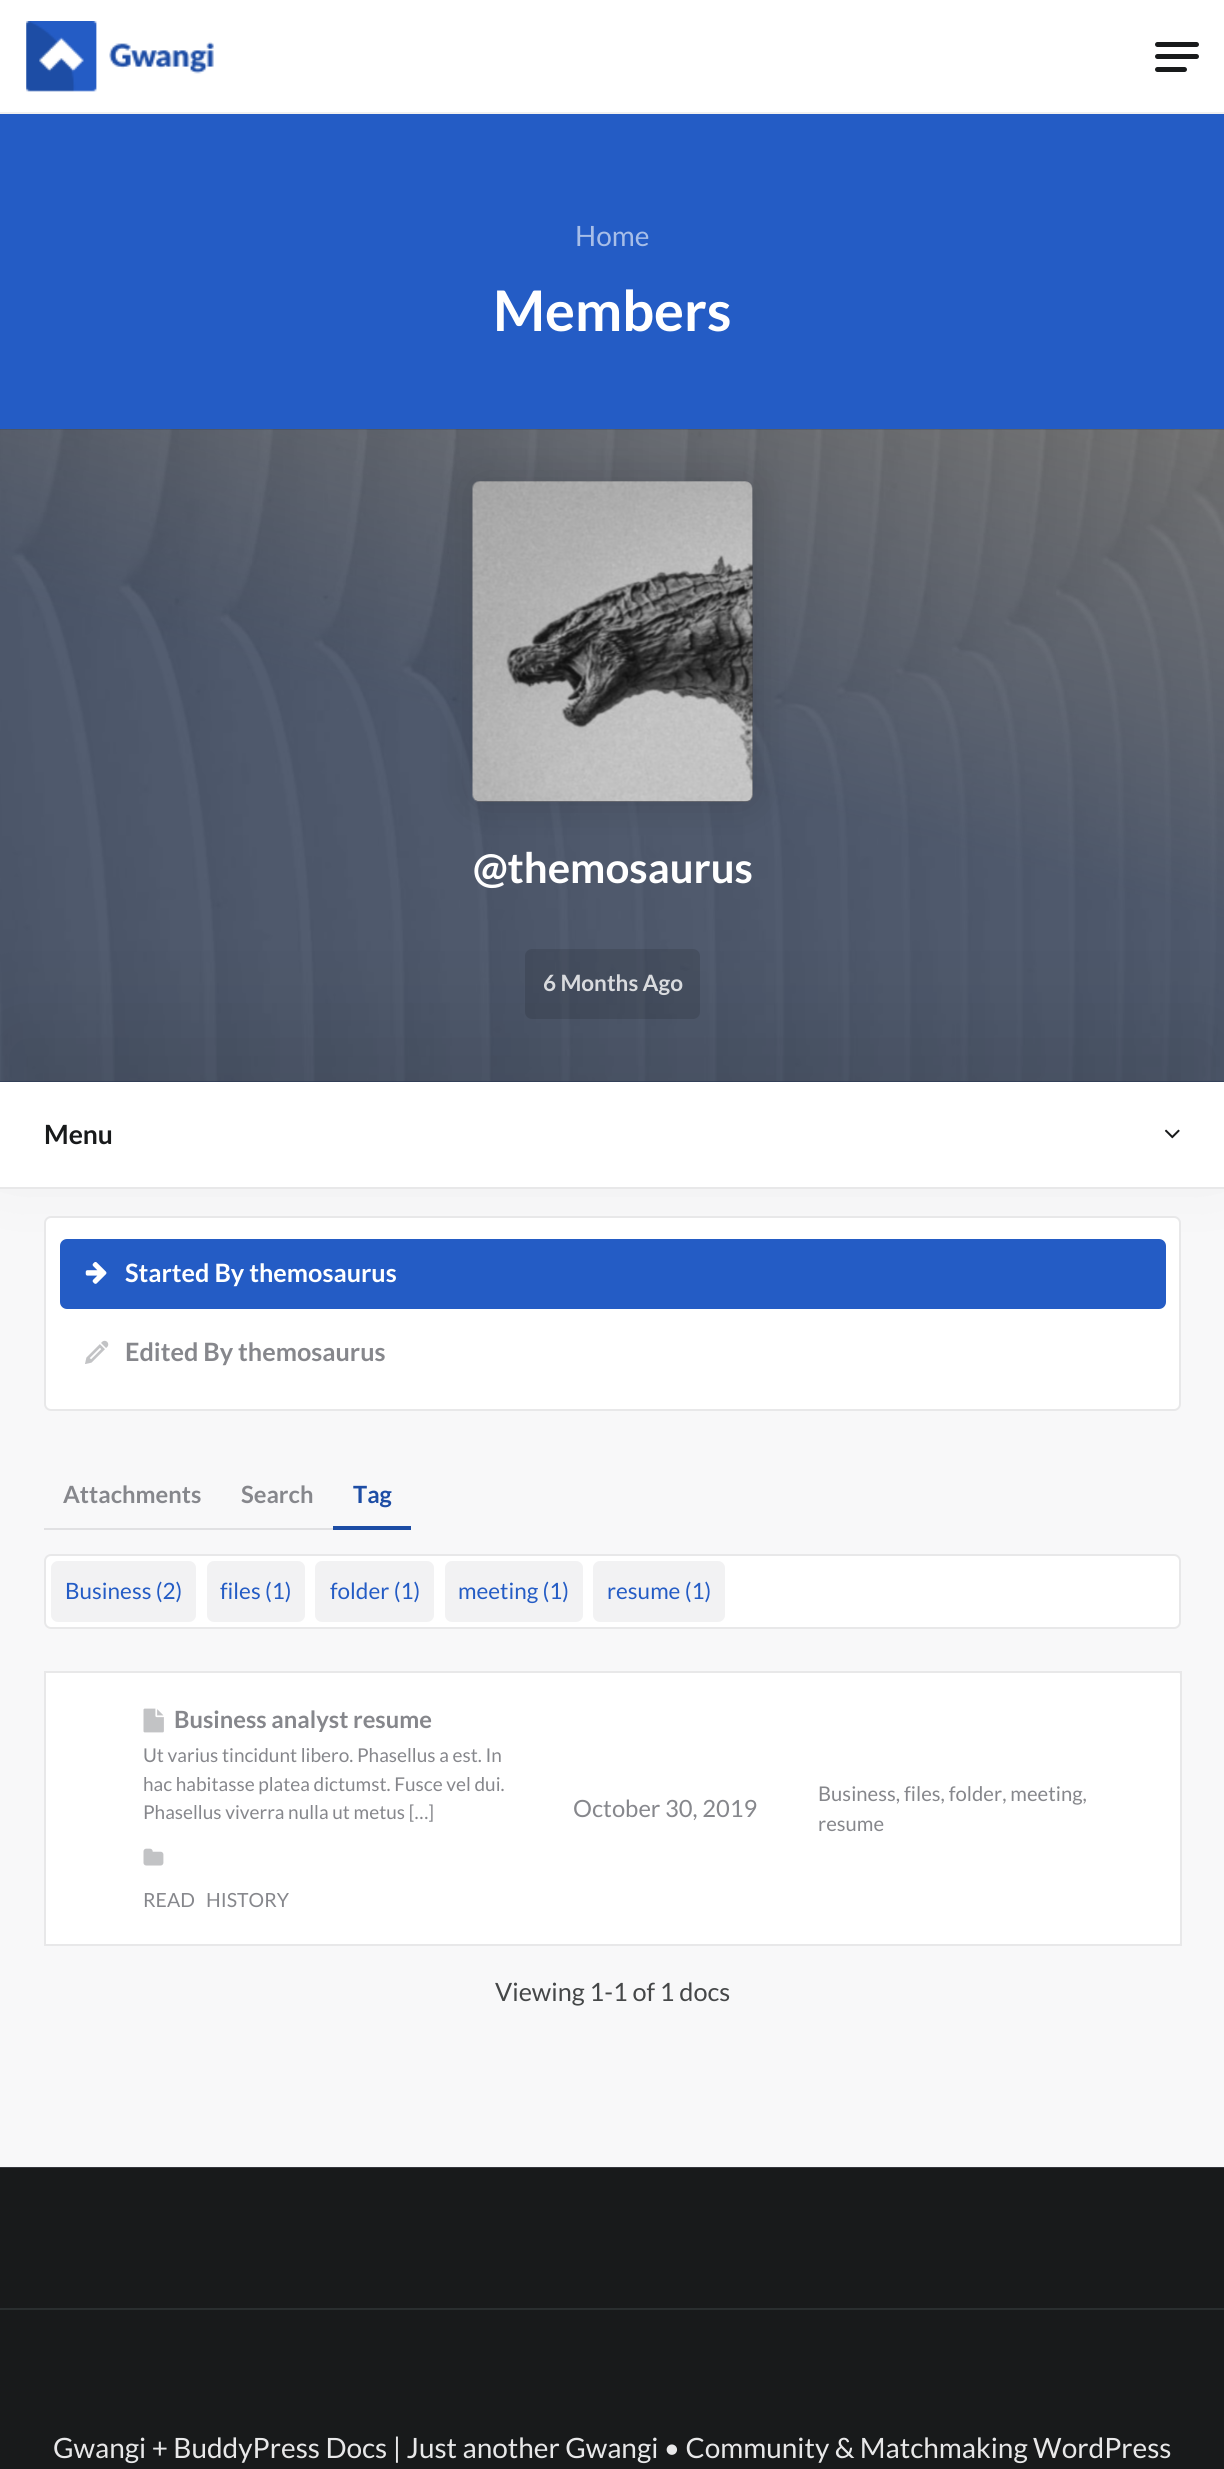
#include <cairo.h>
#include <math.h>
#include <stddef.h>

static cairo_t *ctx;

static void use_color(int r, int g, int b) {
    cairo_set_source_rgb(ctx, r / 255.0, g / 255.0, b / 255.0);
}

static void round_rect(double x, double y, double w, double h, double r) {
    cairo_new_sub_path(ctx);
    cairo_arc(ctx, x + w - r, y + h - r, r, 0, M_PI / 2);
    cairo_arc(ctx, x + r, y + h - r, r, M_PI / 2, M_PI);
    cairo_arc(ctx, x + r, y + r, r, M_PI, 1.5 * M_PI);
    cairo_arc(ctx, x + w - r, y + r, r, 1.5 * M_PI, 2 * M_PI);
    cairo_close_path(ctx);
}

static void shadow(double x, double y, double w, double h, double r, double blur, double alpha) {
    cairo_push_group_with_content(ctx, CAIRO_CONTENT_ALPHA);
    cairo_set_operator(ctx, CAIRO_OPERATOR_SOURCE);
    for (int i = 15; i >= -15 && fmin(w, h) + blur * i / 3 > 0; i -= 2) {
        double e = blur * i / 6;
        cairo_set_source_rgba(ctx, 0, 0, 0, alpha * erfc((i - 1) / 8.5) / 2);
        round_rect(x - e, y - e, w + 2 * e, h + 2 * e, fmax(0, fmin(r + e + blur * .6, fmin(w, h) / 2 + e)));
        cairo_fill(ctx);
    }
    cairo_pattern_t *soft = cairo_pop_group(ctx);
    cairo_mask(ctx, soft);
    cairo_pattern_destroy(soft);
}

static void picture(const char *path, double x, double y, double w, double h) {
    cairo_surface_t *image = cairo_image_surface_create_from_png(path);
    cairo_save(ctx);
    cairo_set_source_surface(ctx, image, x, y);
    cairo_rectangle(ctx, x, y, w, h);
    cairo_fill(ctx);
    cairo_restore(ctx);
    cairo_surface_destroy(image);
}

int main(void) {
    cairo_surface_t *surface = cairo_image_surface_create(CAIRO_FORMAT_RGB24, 1224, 2469);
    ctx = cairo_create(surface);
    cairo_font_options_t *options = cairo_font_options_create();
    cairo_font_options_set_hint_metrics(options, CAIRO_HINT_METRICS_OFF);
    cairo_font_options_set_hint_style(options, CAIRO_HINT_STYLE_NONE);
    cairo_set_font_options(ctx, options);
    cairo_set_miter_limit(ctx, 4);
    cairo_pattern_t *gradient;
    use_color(248, 248, 249);
    cairo_paint(ctx);
    use_color(255, 255, 255);
    cairo_rectangle(ctx, 0, 0, 1224, 112);
    cairo_fill(ctx);
    use_color(240, 240, 240);
    cairo_rectangle(ctx, 0, 112, 1224, 2);
    cairo_fill(ctx);
    picture("img1.png", 26, 21, 188, 71);
    use_color(24, 26, 27);
    round_rect(1155, 54, 44, 5, 2.5);
    cairo_fill(ctx);
    round_rect(1155, 42, 44, 5, 2.5);
    cairo_fill(ctx);
    round_rect(1155, 67, 32, 5, 2.5);
    cairo_fill(ctx);
    use_color(40, 51, 72);
    cairo_rectangle(ctx, 0, 429, 1224, 653);
    cairo_fill(ctx);
    picture("img2.png", 0, 429, 1224, 653);
    gradient = cairo_pattern_create_linear(490, 1213, 735, 297);
    cairo_pattern_add_color_stop_rgba(gradient, 0.5, 0.137, 0.224, 0.388, 0.45);
    cairo_pattern_add_color_stop_rgba(gradient, 1, 0.137, 0.224, 0.388, 0);
    cairo_set_source(ctx, gradient);
    cairo_pattern_destroy(gradient);
    cairo_rectangle(ctx, 0, 429, 1224, 653);
    cairo_fill(ctx);
    use_color(0, 0, 0);
    shadow(473, 481, 280, 321, 7, 22, 0.15);
    use_color(36, 92, 197);
    cairo_rectangle(ctx, 0, 114, 1224, 315);
    cairo_fill(ctx);
    cairo_select_font_face(ctx, "Lato", CAIRO_FONT_SLANT_NORMAL, CAIRO_FONT_WEIGHT_NORMAL);
    cairo_set_font_size(ctx, 28);
    use_color(167, 190, 232);
    cairo_move_to(ctx, 575, 246);
    cairo_show_text(ctx, "Home");
    cairo_select_font_face(ctx, "Lato", CAIRO_FONT_SLANT_NORMAL, CAIRO_FONT_WEIGHT_BOLD);
    cairo_set_font_size(ctx, 56);
    use_color(255, 255, 255);
    cairo_move_to(ctx, 493, 331);
    cairo_show_text(ctx, "Members");
    use_color(61, 64, 74);
    round_rect(473, 481, 280, 321, 7);
    cairo_fill(ctx);
    picture("img3.png", 472, 481, 281, 321);
    use_color(0, 0, 0);
    shadow(0, 1029, 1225, 107, 0, 52.5, 0.1);
    cairo_set_font_size(ctx, 42);
    use_color(255, 255, 255);
    cairo_move_to(ctx, 473, 883);
    cairo_show_text(ctx, "@themosaurus");
    cairo_set_source_rgba(ctx, 0, 0, 0, 0.12);
    round_rect(525, 949, 175, 70, 7);
    cairo_fill(ctx);
    cairo_set_font_size(ctx, 22.5);
    use_color(217, 219, 222);
    cairo_move_to(ctx, 543, 991);
    cairo_show_text(ctx, "6 Months Ago");
    use_color(255, 255, 255);
    cairo_rectangle(ctx, 0, 1082, 1224, 105);
    cairo_fill(ctx);
    use_color(232, 232, 233);
    cairo_rectangle(ctx, 0, 1187, 1224, 2);
    cairo_fill(ctx);
    cairo_set_font_size(ctx, 26.5);
    use_color(24, 26, 27);
    cairo_move_to(ctx, 44, 1144);
    cairo_show_text(ctx, "Menu");
    picture("img4.png", 1164, 1129, 16, 10);
    use_color(255, 255, 255);
    round_rect(45, 1217, 1135, 193, 6);
    cairo_fill_preserve(ctx);
    use_color(232, 232, 233);
    cairo_stroke(ctx);
    use_color(36, 92, 197);
    round_rect(60, 1239, 1106, 70, 7);
    cairo_fill(ctx);
    picture("img5.png", 85, 1262, 22, 22);
    cairo_set_font_size(ctx, 25.25);
    use_color(255, 255, 255);
    cairo_move_to(ctx, 125, 1282);
    cairo_show_text(ctx, "Started By themosaurus");
    picture("img6.png", 85, 1340, 24, 24);
    use_color(134, 135, 140);
    cairo_move_to(ctx, 125, 1361);
    cairo_show_text(ctx, "Edited By themosaurus");
    cairo_set_font_size(ctx, 23.75);
    cairo_move_to(ctx, 63, 1503);
    cairo_show_text(ctx, "Attachments");
    use_color(225, 225, 227);
    cairo_rectangle(ctx, 44, 1528, 289, 2);
    cairo_fill(ctx);
    use_color(134, 135, 140);
    cairo_move_to(ctx, 241, 1503);
    cairo_show_text(ctx, "Search");
    use_color(29, 77, 165);
    cairo_move_to(ctx, 353, 1503);
    cairo_show_text(ctx, "Tag");
    cairo_rectangle(ctx, 333, 1526, 78, 4);
    cairo_fill(ctx);
    use_color(255, 255, 255);
    round_rect(45, 1555, 1135, 73, 6);
    cairo_fill_preserve(ctx);
    use_color(232, 232, 233);
    cairo_stroke(ctx);
    use_color(242, 242, 243);
    round_rect(51, 1561, 145, 61, 7);
    cairo_fill(ctx);
    cairo_select_font_face(ctx, "Lato", CAIRO_FONT_SLANT_NORMAL, CAIRO_FONT_WEIGHT_NORMAL);
    cairo_set_font_size(ctx, 22.5);
    use_color(36, 92, 197);
    cairo_move_to(ctx, 65, 1599);
    cairo_show_text(ctx, "Business (2)");
    use_color(242, 242, 243);
    round_rect(207, 1561, 98, 61, 7);
    cairo_fill(ctx);
    use_color(36, 92, 197);
    cairo_move_to(ctx, 220, 1599);
    cairo_show_text(ctx, "files (1)");
    use_color(242, 242, 243);
    round_rect(315, 1561, 119, 61, 7);
    cairo_fill(ctx);
    use_color(36, 92, 197);
    cairo_move_to(ctx, 330, 1599);
    cairo_show_text(ctx, "folder (1)");
    use_color(242, 242, 243);
    round_rect(445, 1561, 138, 61, 7);
    cairo_fill(ctx);
    use_color(36, 92, 197);
    cairo_move_to(ctx, 458, 1599);
    cairo_show_text(ctx, "meeting (1)");
    use_color(242, 242, 243);
    round_rect(593, 1561, 132, 61, 7);
    cairo_fill(ctx);
    use_color(36, 92, 197);
    cairo_move_to(ctx, 607, 1599);
    cairo_show_text(ctx, "resume (1)");
    use_color(255, 255, 255);
    round_rect(44, 1671, 1137, 275, 7);
    cairo_fill(ctx);
    use_color(232, 232, 233);
    cairo_rectangle(ctx, 44, 1671, 1137, 2);
    cairo_fill(ctx);
    cairo_rectangle(ctx, 1180, 1671, 2, 275);
    cairo_fill(ctx);
    cairo_rectangle(ctx, 44, 1944, 1137, 2);
    cairo_fill(ctx);
    cairo_rectangle(ctx, 44, 1671, 2, 275);
    cairo_fill(ctx);
    picture("img7.png", 143, 1708, 21, 25);
    cairo_select_font_face(ctx, "Lato", CAIRO_FONT_SLANT_NORMAL, CAIRO_FONT_WEIGHT_BOLD);
    cairo_set_font_size(ctx, 23.75);
    use_color(134, 135, 140);
    cairo_move_to(ctx, 174, 1728);
    cairo_show_text(ctx, "Business analyst resume");
    cairo_select_font_face(ctx, "Lato", CAIRO_FONT_SLANT_NORMAL, CAIRO_FONT_WEIGHT_NORMAL);
    cairo_set_font_size(ctx, 19);
    cairo_move_to(ctx, 143, 1762);
    cairo_show_text(ctx, "Ut varius tincidunt libero. Phasellus a est. In");
    cairo_move_to(ctx, 143, 1791);
    cairo_show_text(ctx, "hac habitasse platea dictumst. Fusce vel dui.");
    cairo_move_to(ctx, 143, 1819);
    cairo_show_text(ctx, "Phasellus viverra nulla ut metus […]");
    picture("img8.png", 143, 1848, 21, 18);
    cairo_set_font_size(ctx, 19.5);
    cairo_move_to(ctx, 143, 1907);
    cairo_show_text(ctx, "READ");
    cairo_move_to(ctx, 206, 1907);
    cairo_show_text(ctx, "HISTORY");
    cairo_set_font_size(ctx, 23.75);
    cairo_move_to(ctx, 573, 1817);
    cairo_show_text(ctx, "October 30, 2019");
    cairo_set_font_size(ctx, 20.25);
    cairo_move_to(ctx, 818, 1801);
    cairo_show_text(ctx, "Business, files, folder, meeting,");
    cairo_move_to(ctx, 818, 1831);
    cairo_show_text(ctx, "resume");
    cairo_set_font_size(ctx, 25.25);
    use_color(69, 71, 72);
    cairo_move_to(ctx, 495, 2001);
    cairo_show_text(ctx, "Viewing 1-1 of 1 docs");
    use_color(53, 55, 62);
    cairo_rectangle(ctx, 0, 2167, 1224, 1);
    cairo_fill(ctx);
    use_color(24, 26, 27);
    cairo_rectangle(ctx, 0, 2168, 1224, 140);
    cairo_fill(ctx);
    cairo_rectangle(ctx, 0, 2310, 1224, 159);
    cairo_fill(ctx);
    use_color(41, 46, 47);
    cairo_rectangle(ctx, 0, 2308, 1224, 2);
    cairo_fill(ctx);
    cairo_set_font_size(ctx, 28);
    use_color(232, 232, 233);
    cairo_move_to(ctx, 53, 2458);
    cairo_show_text(ctx, "Gwangi + BuddyPress Docs | Just another Gwangi • Community & Matchmaking WordPress");
    cairo_surface_write_to_png(surface, "result.png");
    cairo_font_options_destroy(options);
    cairo_destroy(ctx);
    cairo_surface_destroy(surface);
    return 0;
}
